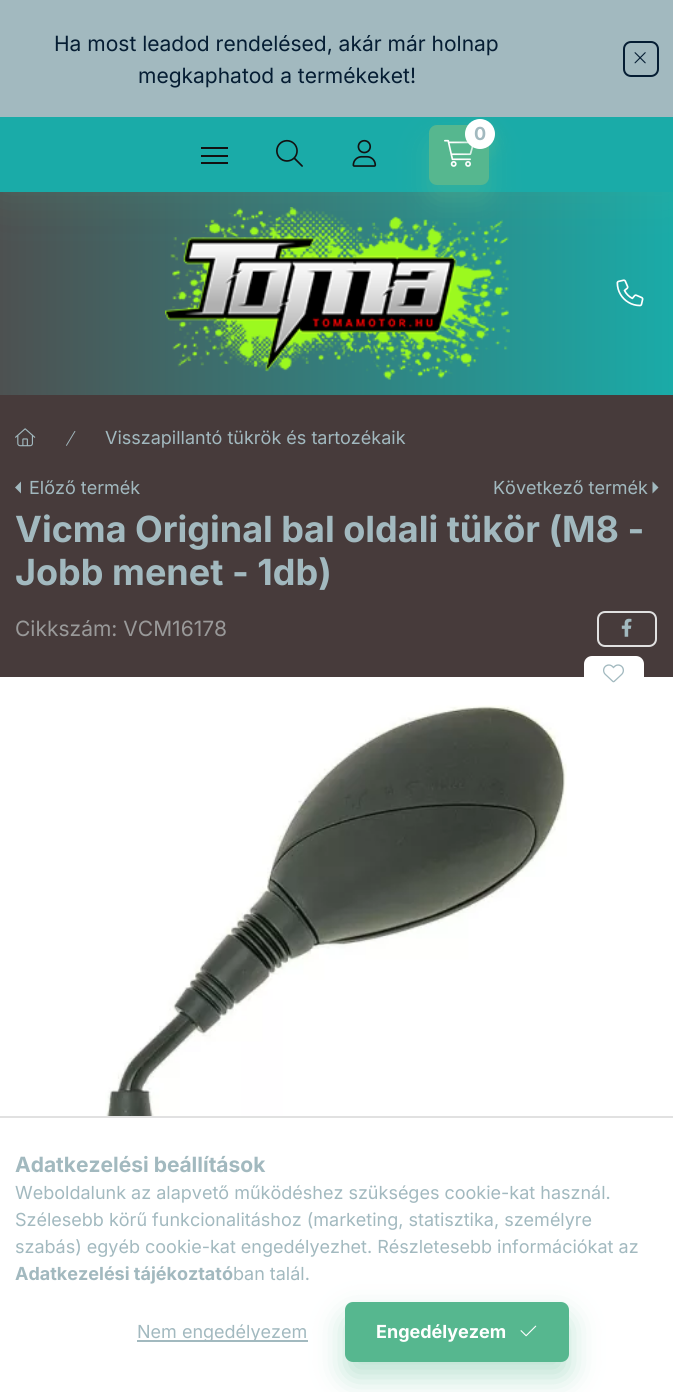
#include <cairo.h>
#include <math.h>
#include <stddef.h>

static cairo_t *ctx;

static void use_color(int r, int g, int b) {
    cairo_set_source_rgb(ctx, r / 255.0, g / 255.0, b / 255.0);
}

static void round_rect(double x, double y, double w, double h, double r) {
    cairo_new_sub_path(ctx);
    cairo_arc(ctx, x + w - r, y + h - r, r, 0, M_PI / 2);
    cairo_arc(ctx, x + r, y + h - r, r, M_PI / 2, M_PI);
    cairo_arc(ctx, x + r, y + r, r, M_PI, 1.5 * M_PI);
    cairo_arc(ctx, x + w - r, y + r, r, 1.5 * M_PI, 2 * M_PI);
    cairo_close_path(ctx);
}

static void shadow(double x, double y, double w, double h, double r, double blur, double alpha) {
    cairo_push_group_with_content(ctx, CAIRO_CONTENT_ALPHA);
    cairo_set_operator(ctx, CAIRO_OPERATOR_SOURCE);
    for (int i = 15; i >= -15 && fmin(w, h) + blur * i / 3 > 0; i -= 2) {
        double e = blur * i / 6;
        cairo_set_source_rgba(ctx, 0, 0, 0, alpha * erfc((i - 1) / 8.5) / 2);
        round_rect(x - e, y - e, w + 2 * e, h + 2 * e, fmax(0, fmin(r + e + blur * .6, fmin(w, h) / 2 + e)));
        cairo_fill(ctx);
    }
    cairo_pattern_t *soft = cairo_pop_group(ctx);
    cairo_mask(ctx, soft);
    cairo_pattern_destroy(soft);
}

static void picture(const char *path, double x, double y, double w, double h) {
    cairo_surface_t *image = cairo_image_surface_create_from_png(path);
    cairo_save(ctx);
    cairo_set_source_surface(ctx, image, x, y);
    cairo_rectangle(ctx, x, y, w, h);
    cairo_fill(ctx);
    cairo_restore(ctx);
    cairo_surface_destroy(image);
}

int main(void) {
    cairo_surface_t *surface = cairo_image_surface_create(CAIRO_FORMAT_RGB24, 673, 1392);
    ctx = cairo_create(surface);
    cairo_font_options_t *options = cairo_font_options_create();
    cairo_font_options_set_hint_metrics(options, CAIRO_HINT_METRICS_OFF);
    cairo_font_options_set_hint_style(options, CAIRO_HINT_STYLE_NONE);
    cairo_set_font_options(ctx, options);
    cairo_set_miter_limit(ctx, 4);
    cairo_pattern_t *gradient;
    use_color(71, 59, 59);
    cairo_paint(ctx);
    gradient = cairo_pattern_create_linear(0, 696, 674, 696);
    cairo_pattern_add_color_stop_rgba(gradient, 0, 0.302, 0.318, 0.318, 1);
    cairo_pattern_add_color_stop_rgba(gradient, 1, 0.102, 0.671, 0.659, 1);
    cairo_set_source(ctx, gradient);
    cairo_pattern_destroy(gradient);
    cairo_rectangle(ctx, 0, 192, 673, 203);
    cairo_fill(ctx);
    picture("img5.png", 165, 207, 345, 173);
    use_color(86, 183, 143);
    shadow(0, 117, 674, 75, 0, 22.5, 0.2);
    use_color(26, 171, 168);
    cairo_rectangle(ctx, 0, 117, 673, 75);
    cairo_fill(ctx);
    use_color(86, 183, 143);
    shadow(429, 140, 60, 60, 8, 15, 0.4);
    use_color(86, 183, 143);
    round_rect(429, 125, 60, 60, 8);
    cairo_fill(ctx);
    picture("img2.png", 444, 139, 30, 28);
    use_color(86, 183, 143);
    shadow(465, 126, 30, 30, 15, 7.5, 0.4);
    use_color(162, 185, 191);
    cairo_rectangle(ctx, 0, 0, 673, 117);
    cairo_fill(ctx);
    cairo_select_font_face(ctx, "Inter", CAIRO_FONT_SLANT_NORMAL, CAIRO_FONT_WEIGHT_NORMAL);
    cairo_set_font_size(ctx, 21);
    use_color(5, 29, 51);
    cairo_move_to(ctx, 54, 51);
    cairo_show_text(ctx, "Ha most leadod rendelésed, akár már holnap");
    cairo_move_to(ctx, 138, 83);
    cairo_show_text(ctx, "megkaphatod a termékeket!");
    round_rect(624, 42, 34, 34, 7);
    cairo_stroke(ctx);
    picture("img1.png", 634, 52, 12, 12);
    use_color(255, 255, 255);
    cairo_arc(ctx, 480, 134, 15, 0, 2 * M_PI);
    cairo_fill(ctx);
    cairo_select_font_face(ctx, "Inter", CAIRO_FONT_SLANT_NORMAL, CAIRO_FONT_WEIGHT_BOLD);
    cairo_set_font_size(ctx, 18);
    use_color(162, 185, 191);
    cairo_move_to(ctx, 474, 140);
    cairo_show_text(ctx, "0");
    use_color(18, 17, 17);
    cairo_rectangle(ctx, 201, 147, 27, 2);
    cairo_fill(ctx);
    cairo_rectangle(ctx, 201, 155, 27, 2);
    cairo_fill(ctx);
    cairo_rectangle(ctx, 201, 162, 27, 2);
    cairo_fill(ctx);
    picture("img3.png", 276, 139, 27, 28);
    picture("img4.png", 352, 139, 25, 28);
    picture("img6.png", 616, 279, 28, 28);
    picture("img7.png", 15, 428, 21, 19);
    picture("img8.png", 66, 431, 10, 15);
    cairo_select_font_face(ctx, "Inter", CAIRO_FONT_SLANT_NORMAL, CAIRO_FONT_WEIGHT_NORMAL);
    use_color(162, 185, 191);
    cairo_move_to(ctx, 105, 444);
    cairo_show_text(ctx, "Visszapillantó tükrök és tartozékaik");
    cairo_new_path(ctx);
    cairo_move_to(ctx, 21, 493.5);
    cairo_line_to(ctx, 21, 481.5);
    cairo_line_to(ctx, 15, 487.5);
    cairo_close_path(ctx);
    cairo_fill(ctx);
    cairo_move_to(ctx, 29, 494);
    cairo_show_text(ctx, "Előző termék");
    cairo_move_to(ctx, 493, 494);
    cairo_show_text(ctx, "Következő termék");
    cairo_new_path(ctx);
    cairo_move_to(ctx, 652.5, 493.5);
    cairo_line_to(ctx, 652.5, 481.5);
    cairo_line_to(ctx, 658.5, 487.5);
    cairo_close_path(ctx);
    cairo_fill(ctx);
    cairo_select_font_face(ctx, "Inter", CAIRO_FONT_SLANT_NORMAL, CAIRO_FONT_WEIGHT_BOLD);
    cairo_set_font_size(ctx, 36);
    cairo_move_to(ctx, 15, 542);
    cairo_show_text(ctx, "Vicma Original bal oldali tükör (M8 -");
    cairo_move_to(ctx, 15, 585);
    cairo_show_text(ctx, "Jobb menet - 1db)");
    cairo_select_font_face(ctx, "Inter", CAIRO_FONT_SLANT_NORMAL, CAIRO_FONT_WEIGHT_NORMAL);
    cairo_set_font_size(ctx, 21);
    use_color(153, 153, 153);
    cairo_move_to(ctx, 15, 636);
    cairo_show_text(ctx, "Cikkszám: VCM16178");
    round_rect(598, 612, 58, 34, 7);
    use_color(225, 225, 225);
    cairo_stroke(ctx);
    picture("img9.png", 621, 618, 11, 19);
    use_color(255, 255, 255);
    cairo_rectangle(ctx, 0, 677, 673, 439);
    cairo_fill(ctx);
    round_rect(584, 656, 60, 36, 8);
    cairo_fill(ctx);
    picture("img10.png", 603, 664, 21, 19);
    picture("img11.png", 92, 705, 475, 411);
    cairo_rectangle(ctx, 0, 1118, 673, 274);
    cairo_fill(ctx);
    use_color(225, 225, 225);
    cairo_rectangle(ctx, 0, 1116, 673, 2);
    cairo_fill(ctx);
    cairo_select_font_face(ctx, "Inter", CAIRO_FONT_SLANT_NORMAL, CAIRO_FONT_WEIGHT_BOLD);
    use_color(162, 185, 191);
    cairo_move_to(ctx, 15, 1172);
    cairo_show_text(ctx, "Adatkezelési beállítások");
    cairo_select_font_face(ctx, "Inter", CAIRO_FONT_SLANT_NORMAL, CAIRO_FONT_WEIGHT_NORMAL);
    cairo_set_font_size(ctx, 18);
    cairo_move_to(ctx, 15, 1199);
    cairo_show_text(ctx, "Weboldalunk az alapvető működéshez szükséges cookie-kat használ.");
    cairo_move_to(ctx, 15, 1226);
    cairo_show_text(ctx, "Szélesebb körű funkcionalitáshoz (marketing, statisztika, személyre");
    cairo_move_to(ctx, 15, 1253);
    cairo_show_text(ctx, "szabás) egyéb cookie-kat engedélyezhet. Részletesebb információkat az");
    cairo_select_font_face(ctx, "Inter", CAIRO_FONT_SLANT_NORMAL, CAIRO_FONT_WEIGHT_BOLD);
    cairo_move_to(ctx, 15, 1280);
    cairo_show_text(ctx, "Adatkezelési tájékoztató");
    cairo_select_font_face(ctx, "Inter", CAIRO_FONT_SLANT_NORMAL, CAIRO_FONT_WEIGHT_NORMAL);
    cairo_move_to(ctx, 233, 1280);
    cairo_show_text(ctx, "ban talál.");
    cairo_rectangle(ctx, 137, 1340, 171, 2);
    cairo_fill(ctx);
    cairo_move_to(ctx, 137, 1338);
    cairo_show_text(ctx, "Nem engedélyezem");
    use_color(86, 183, 143);
    shadow(345, 1317, 224, 60, 8, 15, 0.4);
    use_color(86, 183, 143);
    round_rect(346, 1303, 222, 58, 7);
    cairo_fill_preserve(ctx);
    cairo_stroke(ctx);
    cairo_select_font_face(ctx, "Inter", CAIRO_FONT_SLANT_NORMAL, CAIRO_FONT_WEIGHT_BOLD);
    use_color(255, 255, 255);
    cairo_move_to(ctx, 376, 1338);
    cairo_show_text(ctx, "Engedélyezem");
    picture("img12.png", 520, 1325, 17, 12);
    cairo_surface_write_to_png(surface, "result.png");
    cairo_font_options_destroy(options);
    cairo_destroy(ctx);
    cairo_surface_destroy(surface);
    return 0;
}
